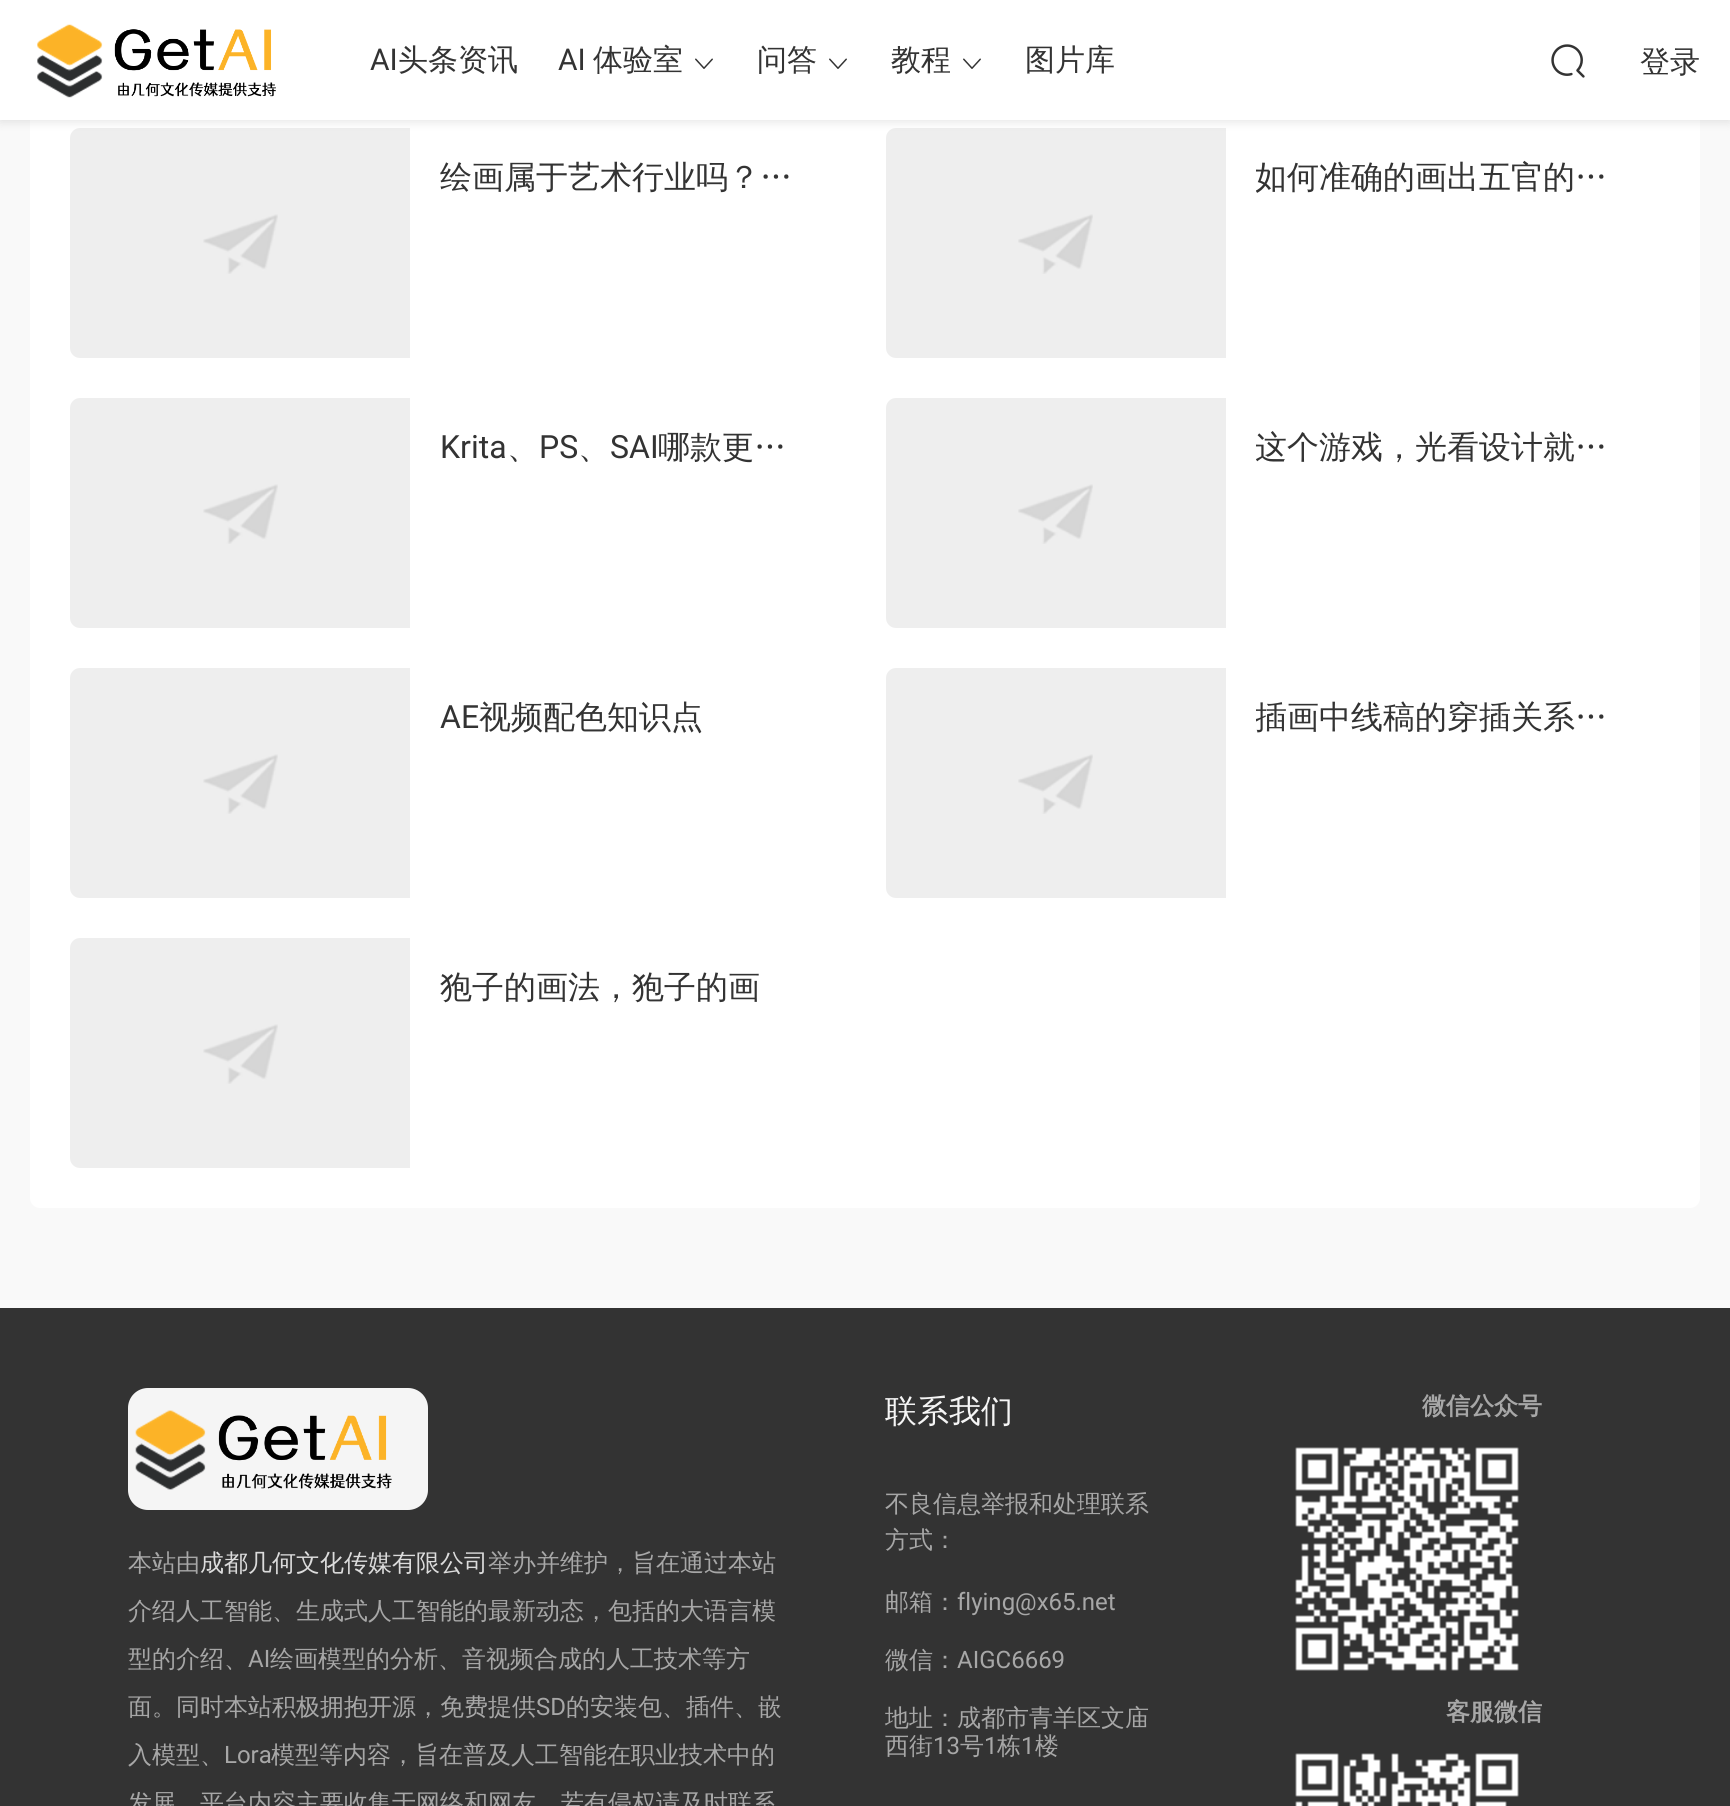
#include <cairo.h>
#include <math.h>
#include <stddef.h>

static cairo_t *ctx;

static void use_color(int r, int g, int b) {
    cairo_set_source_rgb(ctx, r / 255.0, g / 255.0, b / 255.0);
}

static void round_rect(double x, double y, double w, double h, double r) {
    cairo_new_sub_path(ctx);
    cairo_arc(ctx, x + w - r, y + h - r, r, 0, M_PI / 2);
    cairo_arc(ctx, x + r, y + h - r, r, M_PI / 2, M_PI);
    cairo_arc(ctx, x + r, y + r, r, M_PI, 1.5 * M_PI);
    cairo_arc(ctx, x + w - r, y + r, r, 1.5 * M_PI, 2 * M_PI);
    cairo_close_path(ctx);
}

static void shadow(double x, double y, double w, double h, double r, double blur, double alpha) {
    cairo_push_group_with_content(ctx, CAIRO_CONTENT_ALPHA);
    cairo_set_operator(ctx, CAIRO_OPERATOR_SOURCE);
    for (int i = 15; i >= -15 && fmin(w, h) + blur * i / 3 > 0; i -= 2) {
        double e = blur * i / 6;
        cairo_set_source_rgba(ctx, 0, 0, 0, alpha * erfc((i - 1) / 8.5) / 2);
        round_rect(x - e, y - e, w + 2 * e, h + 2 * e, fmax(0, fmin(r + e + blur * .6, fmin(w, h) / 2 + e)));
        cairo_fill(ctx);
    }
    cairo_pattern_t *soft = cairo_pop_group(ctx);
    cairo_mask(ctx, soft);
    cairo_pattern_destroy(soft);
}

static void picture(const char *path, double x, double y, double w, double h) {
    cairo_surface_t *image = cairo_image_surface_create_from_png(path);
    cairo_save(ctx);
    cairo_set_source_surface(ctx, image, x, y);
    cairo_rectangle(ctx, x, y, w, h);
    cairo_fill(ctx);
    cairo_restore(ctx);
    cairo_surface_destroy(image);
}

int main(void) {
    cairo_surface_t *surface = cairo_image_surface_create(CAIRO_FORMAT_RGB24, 1730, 1806);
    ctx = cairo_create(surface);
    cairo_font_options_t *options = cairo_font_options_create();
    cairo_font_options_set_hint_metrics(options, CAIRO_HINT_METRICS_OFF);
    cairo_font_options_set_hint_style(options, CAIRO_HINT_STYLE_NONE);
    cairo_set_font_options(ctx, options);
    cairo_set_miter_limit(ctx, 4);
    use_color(249, 249, 249);
    cairo_paint(ctx);
    use_color(255, 255, 255);
    round_rect(30, -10, 1670, 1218, 10);
    cairo_fill(ctx);
    use_color(238, 238, 238);
    cairo_new_path(ctx);
    cairo_move_to(ctx, 80, 128);
    cairo_line_to(ctx, 410, 128);
    cairo_line_to(ctx, 410, 358);
    cairo_line_to(ctx, 80, 358);
    cairo_curve_to(ctx, 74.5, 358, 70, 353.5, 70, 348);
    cairo_line_to(ctx, 70, 138);
    cairo_curve_to(ctx, 70, 132.5, 74.5, 128, 80, 128);
    cairo_close_path(ctx);
    cairo_fill(ctx);
    cairo_new_path(ctx);
    cairo_move_to(ctx, 896, 128);
    cairo_line_to(ctx, 1226, 128);
    cairo_line_to(ctx, 1226, 358);
    cairo_line_to(ctx, 896, 358);
    cairo_curve_to(ctx, 890.5, 358, 886, 353.5, 886, 348);
    cairo_line_to(ctx, 886, 138);
    cairo_curve_to(ctx, 886, 132.5, 890.5, 128, 896, 128);
    cairo_close_path(ctx);
    cairo_fill(ctx);
    use_color(0, 0, 0);
    shadow(0, 2, 1730, 120, 0, 5, 0.1);
    use_color(255, 255, 255);
    cairo_rectangle(ctx, 0, 0, 1730, 120);
    cairo_fill(ctx);
    picture("img1.png", 37, 24, 239, 74);
    cairo_select_font_face(ctx, "Roboto", CAIRO_FONT_SLANT_NORMAL, CAIRO_FONT_WEIGHT_NORMAL);
    cairo_set_font_size(ctx, 30);
    use_color(51, 51, 51);
    cairo_move_to(ctx, 370, 70);
    cairo_show_text(ctx, "AI");
    cairo_select_font_face(ctx, "WenQuanYi Zen Hei Medium", CAIRO_FONT_SLANT_NORMAL, CAIRO_FONT_WEIGHT_NORMAL);
    cairo_move_to(ctx, 398, 70);
    cairo_show_text(ctx, "头条资讯");
    cairo_select_font_face(ctx, "Roboto", CAIRO_FONT_SLANT_NORMAL, CAIRO_FONT_WEIGHT_NORMAL);
    cairo_move_to(ctx, 558, 70);
    cairo_show_text(ctx, "AI");
    cairo_select_font_face(ctx, "WenQuanYi Zen Hei Medium", CAIRO_FONT_SLANT_NORMAL, CAIRO_FONT_WEIGHT_NORMAL);
    cairo_move_to(ctx, 593, 70);
    cairo_show_text(ctx, "体验室");
    picture("img2.png", 695, 58, 18, 11);
    cairo_move_to(ctx, 757, 70);
    cairo_show_text(ctx, "问答");
    picture("img2.png", 829, 58, 18, 11);
    cairo_move_to(ctx, 891, 70);
    cairo_show_text(ctx, "教程");
    picture("img2.png", 963, 58, 18, 11);
    cairo_move_to(ctx, 1025, 70);
    cairo_show_text(ctx, "图片库");
    picture("img3.png", 1551, 44, 34, 34);
    cairo_move_to(ctx, 1640, 72);
    cairo_show_text(ctx, "登录");
    picture("img4.png", 203, 214, 75, 60);
    cairo_set_font_size(ctx, 32);
    cairo_move_to(ctx, 440, 188);
    cairo_show_text(ctx, "绘画属于艺术行业吗？…");
    picture("img5.png", 1018, 214, 75, 60);
    cairo_save(ctx);
    cairo_rectangle(ctx, 1256, 158, 374, 40);
    cairo_clip(ctx);
    cairo_move_to(ctx, 1255, 188);
    cairo_show_text(ctx, "如何准确的画出五官的…");
    cairo_restore(ctx);
    use_color(238, 238, 238);
    cairo_new_path(ctx);
    cairo_move_to(ctx, 80, 398);
    cairo_line_to(ctx, 410, 398);
    cairo_line_to(ctx, 410, 628);
    cairo_line_to(ctx, 80, 628);
    cairo_curve_to(ctx, 74.5, 628, 70, 623.5, 70, 618);
    cairo_line_to(ctx, 70, 408);
    cairo_curve_to(ctx, 70, 402.5, 74.5, 398, 80, 398);
    cairo_close_path(ctx);
    cairo_fill(ctx);
    picture("img4.png", 203, 484, 75, 60);
    cairo_select_font_face(ctx, "Roboto", CAIRO_FONT_SLANT_NORMAL, CAIRO_FONT_WEIGHT_NORMAL);
    use_color(51, 51, 51);
    cairo_move_to(ctx, 440, 458);
    cairo_show_text(ctx, "Krita");
    cairo_select_font_face(ctx, "WenQuanYi Zen Hei Medium", CAIRO_FONT_SLANT_NORMAL, CAIRO_FONT_WEIGHT_NORMAL);
    cairo_move_to(ctx, 507, 458);
    cairo_show_text(ctx, "、");
    cairo_select_font_face(ctx, "Roboto", CAIRO_FONT_SLANT_NORMAL, CAIRO_FONT_WEIGHT_NORMAL);
    cairo_move_to(ctx, 539, 458);
    cairo_show_text(ctx, "PS");
    cairo_select_font_face(ctx, "WenQuanYi Zen Hei Medium", CAIRO_FONT_SLANT_NORMAL, CAIRO_FONT_WEIGHT_NORMAL);
    cairo_move_to(ctx, 578, 458);
    cairo_show_text(ctx, "、");
    cairo_select_font_face(ctx, "Roboto", CAIRO_FONT_SLANT_NORMAL, CAIRO_FONT_WEIGHT_NORMAL);
    cairo_move_to(ctx, 610, 458);
    cairo_show_text(ctx, "SAI");
    cairo_select_font_face(ctx, "WenQuanYi Zen Hei Medium", CAIRO_FONT_SLANT_NORMAL, CAIRO_FONT_WEIGHT_NORMAL);
    cairo_move_to(ctx, 658, 458);
    cairo_show_text(ctx, "哪款更…");
    use_color(238, 238, 238);
    cairo_new_path(ctx);
    cairo_move_to(ctx, 896, 398);
    cairo_line_to(ctx, 1226, 398);
    cairo_line_to(ctx, 1226, 628);
    cairo_line_to(ctx, 896, 628);
    cairo_curve_to(ctx, 890.5, 628, 886, 623.5, 886, 618);
    cairo_line_to(ctx, 886, 408);
    cairo_curve_to(ctx, 886, 402.5, 890.5, 398, 896, 398);
    cairo_close_path(ctx);
    cairo_fill(ctx);
    picture("img5.png", 1018, 484, 75, 60);
    cairo_save(ctx);
    cairo_rectangle(ctx, 1256, 428, 374, 40);
    cairo_clip(ctx);
    use_color(51, 51, 51);
    cairo_move_to(ctx, 1255, 458);
    cairo_show_text(ctx, "这个游戏，光看设计就…");
    cairo_restore(ctx);
    cairo_new_path(ctx);
    cairo_move_to(ctx, 80, 668);
    cairo_line_to(ctx, 410, 668);
    cairo_line_to(ctx, 410, 898);
    cairo_line_to(ctx, 80, 898);
    cairo_curve_to(ctx, 74.5, 898, 70, 893.5, 70, 888);
    cairo_line_to(ctx, 70, 678);
    cairo_curve_to(ctx, 70, 672.5, 74.5, 668, 80, 668);
    cairo_close_path(ctx);
    cairo_fill(ctx);
    picture("img4.png", 203, 754, 75, 60);
    cairo_select_font_face(ctx, "Roboto", CAIRO_FONT_SLANT_NORMAL, CAIRO_FONT_WEIGHT_NORMAL);
    use_color(51, 51, 51);
    cairo_move_to(ctx, 440, 728);
    cairo_show_text(ctx, "AE");
    cairo_select_font_face(ctx, "WenQuanYi Zen Hei Medium", CAIRO_FONT_SLANT_NORMAL, CAIRO_FONT_WEIGHT_NORMAL);
    cairo_move_to(ctx, 479, 728);
    cairo_show_text(ctx, "视频配色知识点");
    use_color(238, 238, 238);
    cairo_new_path(ctx);
    cairo_move_to(ctx, 896, 668);
    cairo_line_to(ctx, 1226, 668);
    cairo_line_to(ctx, 1226, 898);
    cairo_line_to(ctx, 896, 898);
    cairo_curve_to(ctx, 890.5, 898, 886, 893.5, 886, 888);
    cairo_line_to(ctx, 886, 678);
    cairo_curve_to(ctx, 886, 672.5, 890.5, 668, 896, 668);
    cairo_close_path(ctx);
    cairo_fill(ctx);
    picture("img5.png", 1018, 754, 75, 60);
    cairo_save(ctx);
    cairo_rectangle(ctx, 1256, 698, 374, 40);
    cairo_clip(ctx);
    use_color(51, 51, 51);
    cairo_move_to(ctx, 1255, 728);
    cairo_show_text(ctx, "插画中线稿的穿插关系…");
    cairo_restore(ctx);
    cairo_new_path(ctx);
    cairo_move_to(ctx, 80, 938);
    cairo_line_to(ctx, 410, 938);
    cairo_line_to(ctx, 410, 1168);
    cairo_line_to(ctx, 80, 1168);
    cairo_curve_to(ctx, 74.5, 1168, 70, 1163.5, 70, 1158);
    cairo_line_to(ctx, 70, 948);
    cairo_curve_to(ctx, 70, 942.5, 74.5, 938, 80, 938);
    cairo_close_path(ctx);
    cairo_fill(ctx);
    picture("img4.png", 203, 1024, 75, 60);
    use_color(51, 51, 51);
    cairo_move_to(ctx, 440, 998);
    cairo_show_text(ctx, "狍子的画法，狍子的画");
    cairo_rectangle(ctx, 0, 1308, 1730, 498);
    cairo_fill(ctx);
    use_color(245, 245, 245);
    round_rect(128, 1388, 300, 122, 20);
    cairo_fill(ctx);
    picture("img6.png", 135, 1410, 257, 80);
    cairo_set_font_size(ctx, 24);
    use_color(167, 167, 167);
    cairo_move_to(ctx, 128, 1571);
    cairo_show_text(ctx, "本站由");
    use_color(220, 220, 220);
    cairo_move_to(ctx, 200, 1571);
    cairo_show_text(ctx, "成都几何文化传媒有限公司");
    use_color(167, 167, 167);
    cairo_move_to(ctx, 488, 1571);
    cairo_show_text(ctx, "举办并维护，旨在通过本站");
    cairo_move_to(ctx, 128, 1619);
    cairo_show_text(ctx, "介绍人工智能、生成式人工智能的最新动态，包括的大语言模");
    cairo_move_to(ctx, 128, 1667);
    cairo_show_text(ctx, "型的介绍、");
    cairo_select_font_face(ctx, "Roboto", CAIRO_FONT_SLANT_NORMAL, CAIRO_FONT_WEIGHT_NORMAL);
    cairo_move_to(ctx, 248, 1667);
    cairo_show_text(ctx, "AI");
    cairo_select_font_face(ctx, "WenQuanYi Zen Hei Medium", CAIRO_FONT_SLANT_NORMAL, CAIRO_FONT_WEIGHT_NORMAL);
    cairo_move_to(ctx, 270, 1667);
    cairo_show_text(ctx, "绘画模型的分析、音视频合成的人工技术等方");
    cairo_move_to(ctx, 128, 1715);
    cairo_show_text(ctx, "面。同时本站积极拥抱开源，免费提供");
    cairo_select_font_face(ctx, "Roboto", CAIRO_FONT_SLANT_NORMAL, CAIRO_FONT_WEIGHT_NORMAL);
    cairo_move_to(ctx, 536, 1715);
    cairo_show_text(ctx, "SD");
    cairo_select_font_face(ctx, "WenQuanYi Zen Hei Medium", CAIRO_FONT_SLANT_NORMAL, CAIRO_FONT_WEIGHT_NORMAL);
    cairo_move_to(ctx, 566, 1715);
    cairo_show_text(ctx, "的安装包、插件、嵌");
    cairo_move_to(ctx, 128, 1763);
    cairo_show_text(ctx, "入模型、");
    cairo_select_font_face(ctx, "Roboto", CAIRO_FONT_SLANT_NORMAL, CAIRO_FONT_WEIGHT_NORMAL);
    cairo_move_to(ctx, 224, 1763);
    cairo_show_text(ctx, "Lora");
    cairo_select_font_face(ctx, "WenQuanYi Zen Hei Medium", CAIRO_FONT_SLANT_NORMAL, CAIRO_FONT_WEIGHT_NORMAL);
    cairo_move_to(ctx, 271, 1763);
    cairo_show_text(ctx, "模型等内容，旨在普及人工智能在职业技术中的");
    cairo_move_to(ctx, 128, 1811);
    cairo_show_text(ctx, "发展。平台内容主要收集于网络和网友，若有侵权请及时联系");
    cairo_set_font_size(ctx, 32);
    use_color(245, 245, 245);
    cairo_move_to(ctx, 885, 1422);
    cairo_show_text(ctx, "联系我们");
    cairo_set_font_size(ctx, 24);
    use_color(167, 167, 167);
    cairo_move_to(ctx, 885, 1512);
    cairo_show_text(ctx, "不良信息举报和处理联系");
    cairo_move_to(ctx, 885, 1548);
    cairo_show_text(ctx, "方式：");
    cairo_move_to(ctx, 885, 1610);
    cairo_show_text(ctx, "邮箱：");
    cairo_select_font_face(ctx, "Roboto", CAIRO_FONT_SLANT_NORMAL, CAIRO_FONT_WEIGHT_NORMAL);
    cairo_move_to(ctx, 957, 1610);
    cairo_show_text(ctx, "flying@x65.net");
    cairo_select_font_face(ctx, "WenQuanYi Zen Hei Medium", CAIRO_FONT_SLANT_NORMAL, CAIRO_FONT_WEIGHT_NORMAL);
    cairo_move_to(ctx, 885, 1668);
    cairo_show_text(ctx, "微信：");
    cairo_select_font_face(ctx, "Roboto", CAIRO_FONT_SLANT_NORMAL, CAIRO_FONT_WEIGHT_NORMAL);
    cairo_move_to(ctx, 957, 1668);
    cairo_show_text(ctx, "AIGC6669");
    cairo_select_font_face(ctx, "WenQuanYi Zen Hei Medium", CAIRO_FONT_SLANT_NORMAL, CAIRO_FONT_WEIGHT_NORMAL);
    cairo_move_to(ctx, 885, 1726);
    cairo_show_text(ctx, "地址：成都市青羊区文庙");
    cairo_move_to(ctx, 885, 1754);
    cairo_show_text(ctx, "西街");
    cairo_select_font_face(ctx, "Roboto", CAIRO_FONT_SLANT_NORMAL, CAIRO_FONT_WEIGHT_NORMAL);
    cairo_move_to(ctx, 933, 1754);
    cairo_show_text(ctx, "13");
    cairo_select_font_face(ctx, "WenQuanYi Zen Hei Medium", CAIRO_FONT_SLANT_NORMAL, CAIRO_FONT_WEIGHT_NORMAL);
    cairo_move_to(ctx, 960, 1754);
    cairo_show_text(ctx, "号");
    cairo_select_font_face(ctx, "Roboto", CAIRO_FONT_SLANT_NORMAL, CAIRO_FONT_WEIGHT_NORMAL);
    cairo_move_to(ctx, 984, 1754);
    cairo_show_text(ctx, "1");
    cairo_select_font_face(ctx, "WenQuanYi Zen Hei Medium", CAIRO_FONT_SLANT_NORMAL, CAIRO_FONT_WEIGHT_NORMAL);
    cairo_move_to(ctx, 997, 1754);
    cairo_show_text(ctx, "栋");
    cairo_select_font_face(ctx, "Roboto", CAIRO_FONT_SLANT_NORMAL, CAIRO_FONT_WEIGHT_NORMAL);
    cairo_move_to(ctx, 1021, 1754);
    cairo_show_text(ctx, "1");
    cairo_select_font_face(ctx, "WenQuanYi Zen Hei Medium", CAIRO_FONT_SLANT_NORMAL, CAIRO_FONT_WEIGHT_NORMAL);
    cairo_move_to(ctx, 1035, 1754);
    cairo_show_text(ctx, "楼");
    cairo_select_font_face(ctx, "WenQuanYi Zen Hei", CAIRO_FONT_SLANT_NORMAL, CAIRO_FONT_WEIGHT_BOLD);
    cairo_move_to(ctx, 1422, 1414);
    cairo_show_text(ctx, "微信公众号");
    picture("img7.png", 1295, 1447, 224, 224);
    cairo_move_to(ctx, 1446, 1720);
    cairo_show_text(ctx, "客服微信");
    picture("img8.png", 1295, 1753, 224, 53);
    cairo_surface_write_to_png(surface, "result.png");
    cairo_font_options_destroy(options);
    cairo_destroy(ctx);
    cairo_surface_destroy(surface);
    return 0;
}
